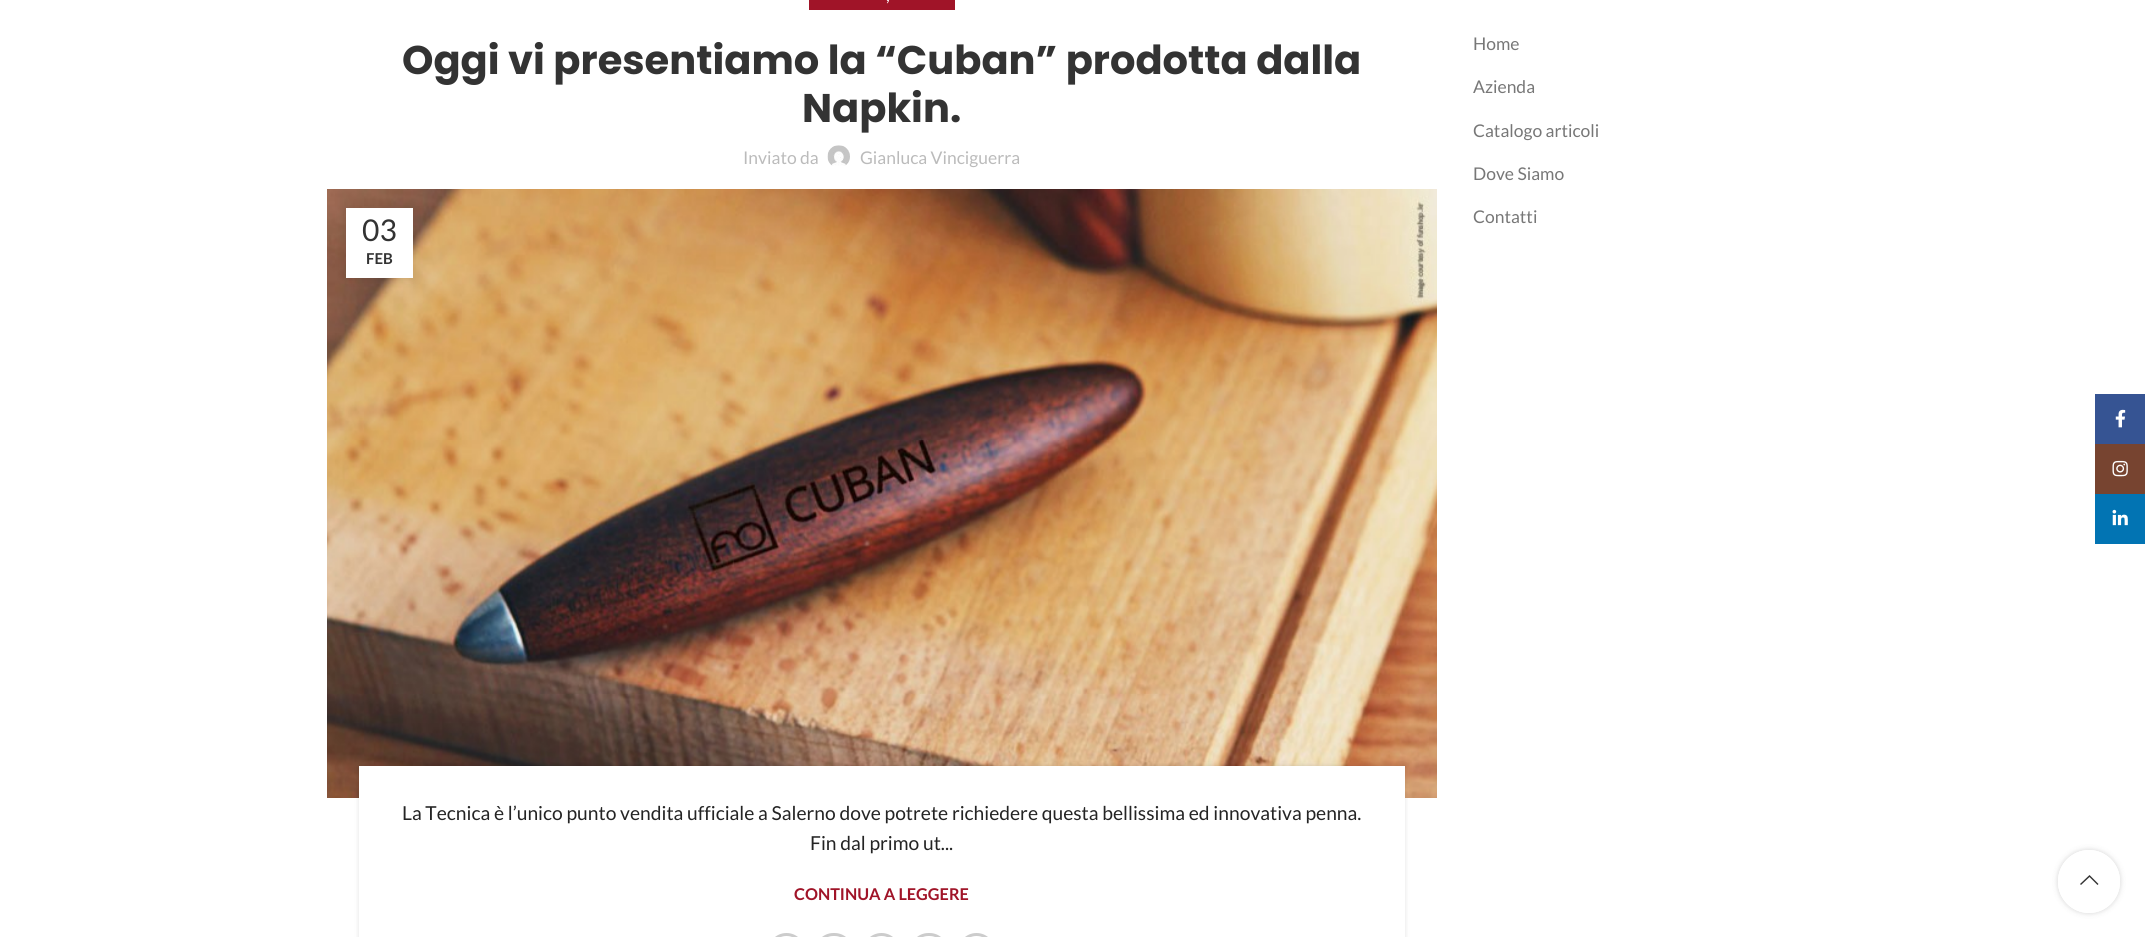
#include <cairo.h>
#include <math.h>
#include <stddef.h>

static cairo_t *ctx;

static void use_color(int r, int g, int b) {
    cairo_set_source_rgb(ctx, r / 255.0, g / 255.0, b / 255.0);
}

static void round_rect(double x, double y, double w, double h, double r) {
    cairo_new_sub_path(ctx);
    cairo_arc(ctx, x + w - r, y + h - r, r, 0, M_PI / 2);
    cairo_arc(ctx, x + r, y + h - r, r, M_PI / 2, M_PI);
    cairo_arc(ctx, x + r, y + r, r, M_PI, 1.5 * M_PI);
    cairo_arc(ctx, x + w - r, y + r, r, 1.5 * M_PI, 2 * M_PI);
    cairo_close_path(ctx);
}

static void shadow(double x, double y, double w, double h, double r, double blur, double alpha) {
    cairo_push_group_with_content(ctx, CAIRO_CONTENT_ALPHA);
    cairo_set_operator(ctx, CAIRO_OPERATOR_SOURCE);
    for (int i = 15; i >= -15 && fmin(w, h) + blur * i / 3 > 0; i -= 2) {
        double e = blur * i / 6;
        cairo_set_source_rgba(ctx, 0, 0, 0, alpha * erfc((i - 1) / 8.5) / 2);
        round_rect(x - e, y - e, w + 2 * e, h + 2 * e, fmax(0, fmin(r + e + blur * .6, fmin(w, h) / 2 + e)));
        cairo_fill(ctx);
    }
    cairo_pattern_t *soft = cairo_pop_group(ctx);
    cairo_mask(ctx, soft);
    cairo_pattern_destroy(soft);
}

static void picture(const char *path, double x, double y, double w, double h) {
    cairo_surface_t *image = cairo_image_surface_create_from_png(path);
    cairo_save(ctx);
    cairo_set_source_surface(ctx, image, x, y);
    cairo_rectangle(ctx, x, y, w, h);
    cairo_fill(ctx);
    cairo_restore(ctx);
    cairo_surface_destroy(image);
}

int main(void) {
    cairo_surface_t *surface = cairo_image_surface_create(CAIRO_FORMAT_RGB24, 2145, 937);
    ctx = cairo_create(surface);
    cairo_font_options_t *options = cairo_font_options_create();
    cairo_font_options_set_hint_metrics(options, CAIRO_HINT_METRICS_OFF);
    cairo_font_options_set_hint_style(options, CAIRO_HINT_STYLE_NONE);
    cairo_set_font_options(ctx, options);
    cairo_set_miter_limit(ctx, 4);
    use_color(255, 255, 255);
    cairo_paint(ctx);
    use_color(160, 20, 40);
    cairo_rectangle(ctx, 809, 0, 146, 10);
    cairo_fill(ctx);
    cairo_select_font_face(ctx, "Lato", CAIRO_FONT_SLANT_NORMAL, CAIRO_FONT_WEIGHT_NORMAL);
    cairo_set_font_size(ctx, 17.5);
    use_color(255, 255, 255);
    cairo_move_to(ctx, 886, 1);
    cairo_show_text(ctx, ",");
    cairo_select_font_face(ctx, "Poppins", CAIRO_FONT_SLANT_NORMAL, CAIRO_FONT_WEIGHT_BOLD);
    cairo_set_font_size(ctx, 40);
    use_color(51, 51, 51);
    cairo_move_to(ctx, 402, 74);
    cairo_show_text(ctx, "Oggi vi presentiamo la “Cuban” prodotta dalla");
    cairo_move_to(ctx, 802, 122);
    cairo_show_text(ctx, "Napkin.");
    cairo_select_font_face(ctx, "Lato", CAIRO_FONT_SLANT_NORMAL, CAIRO_FONT_WEIGHT_NORMAL);
    cairo_set_font_size(ctx, 17.5);
    use_color(187, 187, 187);
    cairo_move_to(ctx, 743, 164);
    cairo_show_text(ctx, "Inviato da");
    picture("img1.png", 827, 145, 23, 21);
    cairo_move_to(ctx, 860, 164);
    cairo_show_text(ctx, "Gianluca Vinciguerra");
    picture("img2.png", 327, 189, 1110, 609);
    use_color(0, 0, 0);
    shadow(346, 208, 67, 70, 0, 5.5, 0.1);
    use_color(255, 255, 255);
    cairo_rectangle(ctx, 346, 208, 67, 70);
    cairo_fill(ctx);
    cairo_set_font_size(ctx, 30);
    use_color(51, 51, 51);
    cairo_move_to(ctx, 362, 241);
    cairo_show_text(ctx, "03");
    cairo_select_font_face(ctx, "Lato", CAIRO_FONT_SLANT_NORMAL, CAIRO_FONT_WEIGHT_BOLD);
    cairo_set_font_size(ctx, 15);
    cairo_move_to(ctx, 366, 264);
    cairo_show_text(ctx, "FEB");
    use_color(0, 0, 0);
    shadow(359, 766, 1046, 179, 0, 2.5, 0.12);
    use_color(255, 255, 255);
    cairo_rectangle(ctx, 359, 766, 1046, 171);
    cairo_fill(ctx);
    cairo_select_font_face(ctx, "Lato", CAIRO_FONT_SLANT_NORMAL, CAIRO_FONT_WEIGHT_NORMAL);
    cairo_set_font_size(ctx, 19.25);
    use_color(36, 36, 36);
    cairo_move_to(ctx, 402, 820);
    cairo_show_text(ctx, "La Tecnica è l’unico punto vendita ufficiale a Salerno dove potrete richiedere questa bellissima ed innovativa penna.");
    cairo_move_to(ctx, 810, 850);
    cairo_show_text(ctx, "Fin dal primo ut...");
    cairo_select_font_face(ctx, "Lato", CAIRO_FONT_SLANT_NORMAL, CAIRO_FONT_WEIGHT_BOLD);
    cairo_set_font_size(ctx, 16.25);
    use_color(160, 20, 40);
    cairo_move_to(ctx, 794, 900);
    cairo_show_text(ctx, "CONTINUA A LEGGERE");
    round_rect(769.5, 934.5, 34, 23, 17);
    use_color(204, 204, 204);
    cairo_set_line_width(ctx, 3);
    cairo_stroke(ctx);
    round_rect(816.5, 934.5, 35, 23, 17);
    cairo_stroke(ctx);
    round_rect(864.5, 934.5, 34, 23, 17);
    cairo_stroke(ctx);
    round_rect(911.5, 934.5, 35, 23, 17);
    cairo_stroke(ctx);
    round_rect(959.5, 934.5, 34, 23, 17);
    cairo_stroke(ctx);
    cairo_select_font_face(ctx, "Lato", CAIRO_FONT_SLANT_NORMAL, CAIRO_FONT_WEIGHT_NORMAL);
    cairo_set_font_size(ctx, 17.5);
    use_color(119, 119, 119);
    cairo_move_to(ctx, 1473, 50);
    cairo_show_text(ctx, "Home");
    cairo_move_to(ctx, 1473, 93);
    cairo_show_text(ctx, "Azienda");
    cairo_move_to(ctx, 1473, 137);
    cairo_show_text(ctx, "Catalogo articoli");
    cairo_move_to(ctx, 1473, 180);
    cairo_show_text(ctx, "Dove Siamo");
    cairo_move_to(ctx, 1473, 223);
    cairo_show_text(ctx, "Contatti");
    use_color(54, 84, 147);
    cairo_rectangle(ctx, 2095, 394, 50, 50);
    cairo_fill(ctx);
    picture("img3.png", 2115, 409, 11, 19);
    use_color(119, 68, 48);
    cairo_rectangle(ctx, 2095, 444, 50, 50);
    cairo_fill(ctx);
    picture("img4.png", 2112, 460, 16, 17);
    use_color(2, 116, 179);
    cairo_rectangle(ctx, 2095, 494, 50, 50);
    cairo_fill(ctx);
    picture("img5.png", 2112, 509, 16, 17);
    cairo_save(ctx);
    cairo_set_fill_rule(ctx, CAIRO_FILL_RULE_EVEN_ODD);
    cairo_new_path(ctx);
    cairo_move_to(ctx, 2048, 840);
    cairo_line_to(ctx, 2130, 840);
    cairo_line_to(ctx, 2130, 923);
    cairo_line_to(ctx, 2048, 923);
    cairo_close_path(ctx);
    cairo_move_to(ctx, 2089, 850);
    cairo_curve_to(ctx, 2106, 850, 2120, 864, 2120, 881);
    cairo_line_to(ctx, 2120, 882);
    cairo_curve_to(ctx, 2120, 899, 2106, 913, 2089, 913);
    cairo_curve_to(ctx, 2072, 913, 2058, 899, 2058, 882);
    cairo_line_to(ctx, 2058, 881);
    cairo_curve_to(ctx, 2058, 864, 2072, 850, 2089, 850);
    cairo_close_path(ctx);
    cairo_clip(ctx);
    use_color(0, 0, 0);
    shadow(2058, 850, 62, 63, 31, 3, 0.17);
    cairo_restore(ctx);
    cairo_set_source_rgba(ctx, 1, 1, 1, 0.9);
    round_rect(2058, 850, 62, 63, 31);
    cairo_fill(ctx);
    use_color(51, 51, 51);
    cairo_new_path(ctx);
    cairo_move_to(ctx, 2097.5, 885);
    cairo_line_to(ctx, 2098.5, 884);
    cairo_line_to(ctx, 2089.5, 875);
    cairo_line_to(ctx, 2080, 884);
    cairo_line_to(ctx, 2081, 885);
    cairo_line_to(ctx, 2089.5, 877);
    cairo_close_path(ctx);
    cairo_fill(ctx);
    cairo_surface_write_to_png(surface, "result.png");
    cairo_font_options_destroy(options);
    cairo_destroy(ctx);
    cairo_surface_destroy(surface);
    return 0;
}
